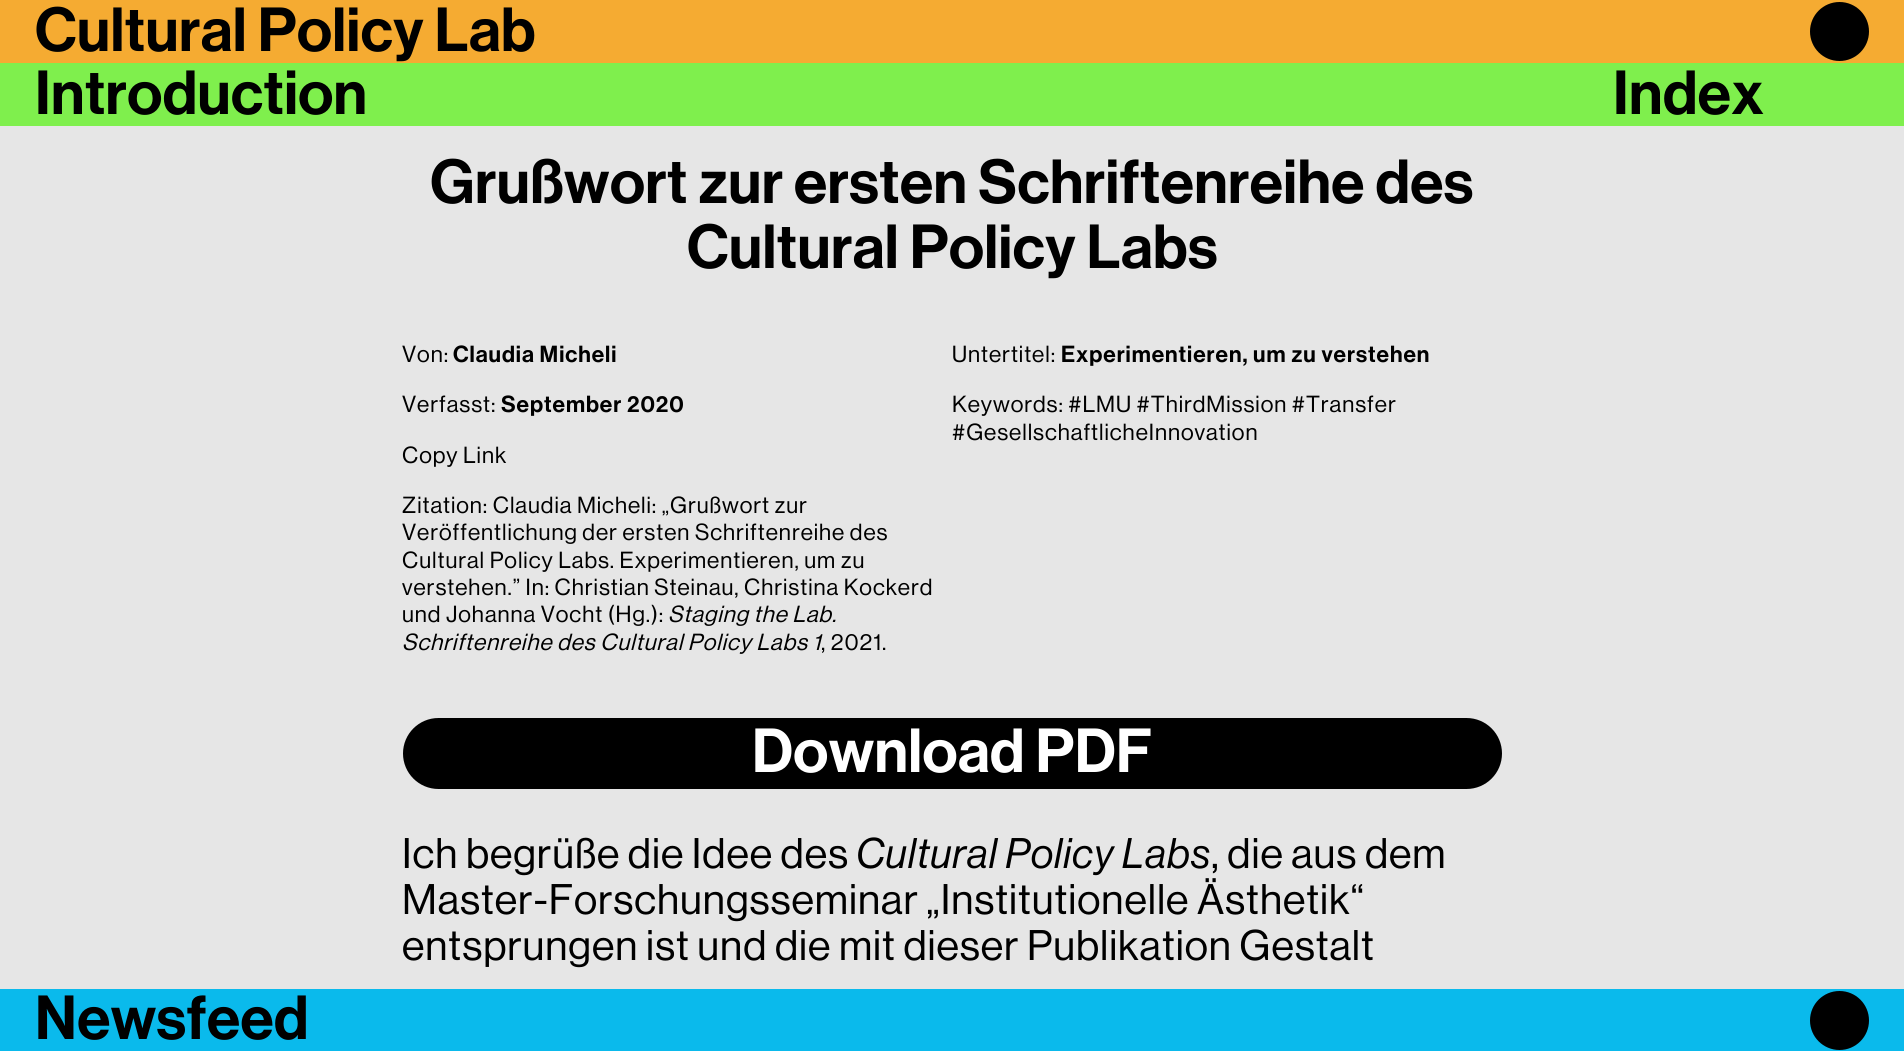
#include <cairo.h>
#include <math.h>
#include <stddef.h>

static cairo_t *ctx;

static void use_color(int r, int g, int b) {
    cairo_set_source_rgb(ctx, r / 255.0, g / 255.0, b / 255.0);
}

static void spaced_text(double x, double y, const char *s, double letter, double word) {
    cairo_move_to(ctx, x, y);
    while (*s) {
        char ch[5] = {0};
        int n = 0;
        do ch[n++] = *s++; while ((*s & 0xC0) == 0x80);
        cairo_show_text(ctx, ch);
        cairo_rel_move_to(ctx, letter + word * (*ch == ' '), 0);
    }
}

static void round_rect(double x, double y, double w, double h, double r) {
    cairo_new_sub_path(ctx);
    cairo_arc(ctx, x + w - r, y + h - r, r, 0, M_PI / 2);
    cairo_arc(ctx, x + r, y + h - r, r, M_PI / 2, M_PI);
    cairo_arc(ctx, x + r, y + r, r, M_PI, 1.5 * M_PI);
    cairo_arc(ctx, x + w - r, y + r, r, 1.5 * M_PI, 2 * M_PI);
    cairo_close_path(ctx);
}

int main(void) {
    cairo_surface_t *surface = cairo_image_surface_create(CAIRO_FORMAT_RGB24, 1904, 1051);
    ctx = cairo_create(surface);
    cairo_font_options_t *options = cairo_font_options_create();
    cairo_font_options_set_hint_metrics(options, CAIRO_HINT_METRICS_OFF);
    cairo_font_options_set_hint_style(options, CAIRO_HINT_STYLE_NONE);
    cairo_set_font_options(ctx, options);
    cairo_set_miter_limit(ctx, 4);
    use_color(230, 230, 230);
    cairo_paint(ctx);
    use_color(245, 171, 50);
    cairo_rectangle(ctx, 0, 0, 1904, 63);
    cairo_fill(ctx);
    cairo_select_font_face(ctx, "Neue Haas Grotesk Medium", CAIRO_FONT_SLANT_NORMAL, CAIRO_FONT_WEIGHT_NORMAL);
    cairo_set_font_size(ctx, 60.9);
    use_color(0, 0, 0);
    spaced_text(35, 51, "Cultural Policy Lab", 0.4, 0);
    cairo_new_path(ctx);
    cairo_arc(ctx, 1839.5, 31.5, 29.5, 0, 2 * M_PI);
    cairo_fill(ctx);
    use_color(127, 239, 77);
    cairo_rectangle(ctx, 0, 63, 1904, 63);
    cairo_fill(ctx);
    use_color(0, 0, 0);
    spaced_text(35, 114, "Introduction", 0.4, 0);
    spaced_text(1613, 114, "Index", 0.4, 0);
    spaced_text(430, 203, "Grußwort zur ersten Schriftenreihe des", 0.4, 0);
    spaced_text(687, 268, "Cultural Policy Labs", 0.4, 0);
    cairo_select_font_face(ctx, "Neue Haas Grotesk", CAIRO_FONT_SLANT_NORMAL, CAIRO_FONT_WEIGHT_NORMAL);
    cairo_set_font_size(ctx, 22.85);
    spaced_text(402, 362, "Von:", 0.95, 0);
    cairo_select_font_face(ctx, "Neue Haas Grotesk Medium", CAIRO_FONT_SLANT_NORMAL, CAIRO_FONT_WEIGHT_NORMAL);
    spaced_text(453, 362, "Claudia Micheli", 0.95, 0);
    cairo_select_font_face(ctx, "Neue Haas Grotesk", CAIRO_FONT_SLANT_NORMAL, CAIRO_FONT_WEIGHT_NORMAL);
    spaced_text(402, 412, "Verfasst:", 0.95, 0);
    cairo_select_font_face(ctx, "Neue Haas Grotesk Medium", CAIRO_FONT_SLANT_NORMAL, CAIRO_FONT_WEIGHT_NORMAL);
    spaced_text(501, 412, "September 2020", 0.95, 0);
    cairo_select_font_face(ctx, "Neue Haas Grotesk", CAIRO_FONT_SLANT_NORMAL, CAIRO_FONT_WEIGHT_NORMAL);
    spaced_text(402, 463, "Copy Link", 0.95, 0);
    spaced_text(402, 513, "Zitation: Claudia Micheli: „Grußwort zur", 0.95, 0);
    spaced_text(402, 540, "Veröffentlichung der ersten Schriftenreihe des", 0.95, 0);
    spaced_text(402, 568, "Cultural Policy Labs. Experimentieren, um zu", 0.95, 0);
    spaced_text(402, 595, "verstehen.” In: Christian Steinau, Christina Kockerd", 0.95, 0);
    spaced_text(402, 622, "und Johanna Vocht (Hg.):", 0.95, 0);
    cairo_select_font_face(ctx, "Neue Haas Grotesk", CAIRO_FONT_SLANT_ITALIC, CAIRO_FONT_WEIGHT_NORMAL);
    spaced_text(668, 622, "Staging the Lab.", 0.95, 0);
    spaced_text(402, 650, "Schriftenreihe des Cultural Policy Labs 1", 0.95, 0);
    cairo_select_font_face(ctx, "Neue Haas Grotesk", CAIRO_FONT_SLANT_NORMAL, CAIRO_FONT_WEIGHT_NORMAL);
    spaced_text(821, 650, ", 2021.", 0.95, 0);
    spaced_text(952, 362, "Untertitel:", 0.95, 0);
    cairo_select_font_face(ctx, "Neue Haas Grotesk Medium", CAIRO_FONT_SLANT_NORMAL, CAIRO_FONT_WEIGHT_NORMAL);
    spaced_text(1061, 362, "Experimentieren, um zu verstehen", 0.95, 0);
    cairo_select_font_face(ctx, "Neue Haas Grotesk", CAIRO_FONT_SLANT_NORMAL, CAIRO_FONT_WEIGHT_NORMAL);
    spaced_text(952, 412, "Keywords: #LMU #ThirdMission #Transfer", 0.95, 0);
    spaced_text(952, 440, "#GesellschaftlicheInnovation", 0.95, 0);
    round_rect(403, 718, 1099, 71, 35.5);
    cairo_fill(ctx);
    cairo_select_font_face(ctx, "Neue Haas Grotesk Medium", CAIRO_FONT_SLANT_NORMAL, CAIRO_FONT_WEIGHT_NORMAL);
    cairo_set_font_size(ctx, 60.9);
    use_color(255, 255, 255);
    spaced_text(752, 772, "Download PDF", 0.4, 0);
    cairo_select_font_face(ctx, "Neue Haas Grotesk", CAIRO_FONT_SLANT_NORMAL, CAIRO_FONT_WEIGHT_NORMAL);
    cairo_set_font_size(ctx, 41.9);
    use_color(0, 0, 0);
    spaced_text(402, 868, "Ich begrüße die Idee des", 0.95, 0);
    cairo_select_font_face(ctx, "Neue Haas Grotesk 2", CAIRO_FONT_SLANT_NORMAL, CAIRO_FONT_WEIGHT_NORMAL);
    spaced_text(856, 868, "Cultural Policy Labs", 0.95, 0);
    cairo_select_font_face(ctx, "Neue Haas Grotesk", CAIRO_FONT_SLANT_NORMAL, CAIRO_FONT_WEIGHT_NORMAL);
    spaced_text(1211, 868, ", die aus dem", 0.95, 0);
    spaced_text(402, 914, "Master-Forschungsseminar „Institutionelle Ästhetik“", 0.95, 0);
    spaced_text(402, 960, "entsprungen ist und die mit dieser Publikation Gestalt", 0.95, 0);
    use_color(10, 186, 236);
    cairo_rectangle(ctx, 0, 989, 1904, 62);
    cairo_fill(ctx);
    cairo_select_font_face(ctx, "Neue Haas Grotesk Medium", CAIRO_FONT_SLANT_NORMAL, CAIRO_FONT_WEIGHT_NORMAL);
    cairo_set_font_size(ctx, 60.9);
    use_color(0, 0, 0);
    spaced_text(35, 1039, "Newsfeed", 0.4, 0);
    cairo_new_path(ctx);
    cairo_arc(ctx, 1839.5, 1020.5, 29.5, 0, 2 * M_PI);
    cairo_fill(ctx);
    cairo_surface_write_to_png(surface, "result.png");
    cairo_font_options_destroy(options);
    cairo_destroy(ctx);
    cairo_surface_destroy(surface);
    return 0;
}
